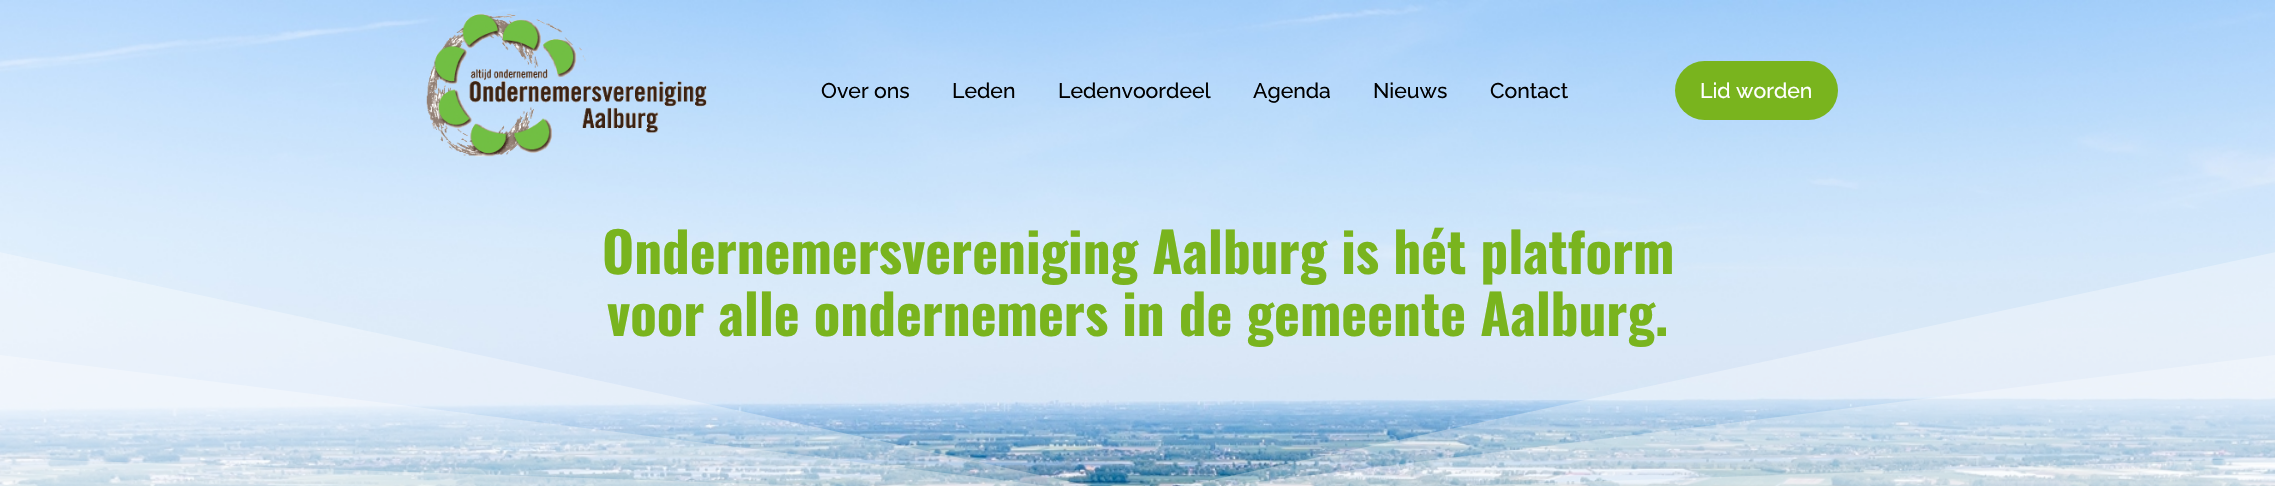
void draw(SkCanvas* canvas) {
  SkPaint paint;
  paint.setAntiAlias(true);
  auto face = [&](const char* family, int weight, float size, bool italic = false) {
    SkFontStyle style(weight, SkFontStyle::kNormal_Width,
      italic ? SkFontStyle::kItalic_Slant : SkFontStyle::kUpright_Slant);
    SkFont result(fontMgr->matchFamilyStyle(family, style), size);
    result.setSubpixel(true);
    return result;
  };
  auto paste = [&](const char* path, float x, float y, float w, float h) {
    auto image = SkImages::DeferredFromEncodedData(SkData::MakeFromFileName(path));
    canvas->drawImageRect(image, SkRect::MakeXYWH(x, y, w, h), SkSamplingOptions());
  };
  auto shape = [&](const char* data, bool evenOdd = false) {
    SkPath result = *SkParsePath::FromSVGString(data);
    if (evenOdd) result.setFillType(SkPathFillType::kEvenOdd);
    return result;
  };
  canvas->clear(0xffffffff);
  paste("img/2.png", 0, 0, 2275, 486);
  paste("img/1.png", 426, 13, 281, 144);
  paint.setColor(0xff79b41e);
  canvas->drawRoundRect(SkRect::MakeXYWH(1675, 61, 163, 59), 29.5f, 29.5f, paint);
  paint.setColor(0x54ffffff);
  canvas->drawPath(shape("M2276 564V252L1137 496L-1 252V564Z"), paint);
  canvas->drawPath(shape("M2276 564V355L1137 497L-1 355V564Z"), paint);
  canvas->drawPath(shape("M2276 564V458L1137 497L-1 458V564Z"), paint);
  auto f0 = face("Raleway", 500, 21.25f);
  paint.setColor(0xff000000);
  {
    const struct { const char* s; float x, y; } items[] = {
      {"Over ons", 821, 98},
      {"Leden", 952, 98},
      {"Ledenvoordeel", 1058, 98},
      {"Agenda", 1253, 98},
      {"Nieuws", 1373, 98},
      {"Contact", 1490, 98},
    };
    for (auto [s, x, y] : items) {
      canvas->drawString(s, x, y, f0, paint);
    }
  }
  paint.setColor(0xffffffff);
  canvas->drawString("Lid worden", 1700, 98, f0, paint);
  auto f1 = face("Oswald", 700, 55);
  paint.setColor(0xff79b41e);
  canvas->drawString("Ondernemersvereniging Aalburg is hét platform", 602, 274, f1, paint);
  canvas->drawString("voor alle ondernemers in de gemeente Aalburg.", 607, 336, f1, paint);
}
